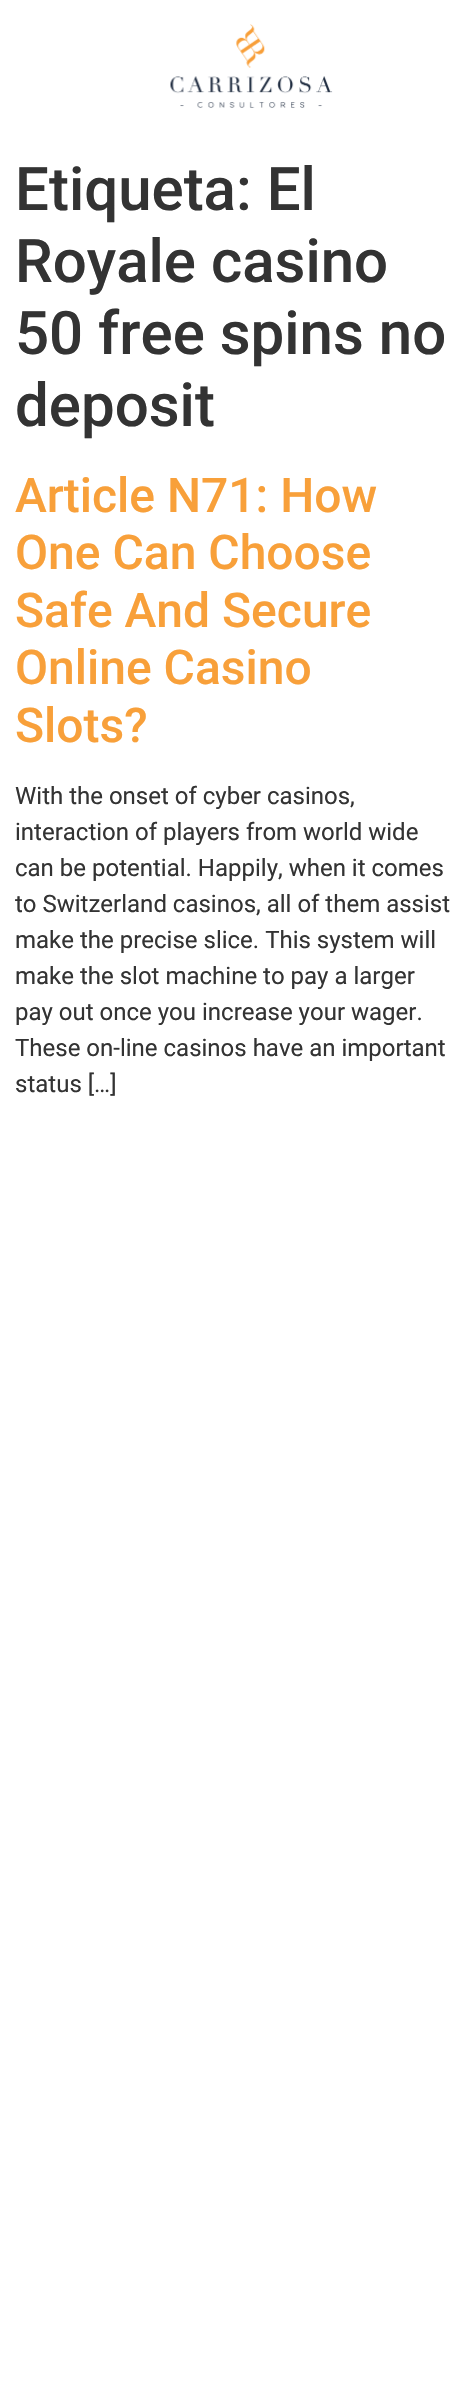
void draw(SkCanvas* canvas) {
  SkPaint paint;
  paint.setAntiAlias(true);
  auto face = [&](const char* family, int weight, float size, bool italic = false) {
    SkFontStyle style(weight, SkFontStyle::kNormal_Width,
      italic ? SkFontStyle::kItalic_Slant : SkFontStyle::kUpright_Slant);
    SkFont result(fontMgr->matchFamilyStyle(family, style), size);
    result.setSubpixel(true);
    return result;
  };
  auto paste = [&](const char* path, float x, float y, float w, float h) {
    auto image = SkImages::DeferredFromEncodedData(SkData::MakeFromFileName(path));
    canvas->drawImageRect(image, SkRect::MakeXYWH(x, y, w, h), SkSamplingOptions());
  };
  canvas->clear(0xffffffff);
  paste("img/1.png", 170, 24, 163, 84);
  auto f0 = face("Roboto", 500, 60);
  paint.setColor(0xff333333);
  {
    const struct { const char* s; float x, y; } items[] = {
      {"Etiqueta: El", 15, 210},
      {"Royale casino", 15, 282},
      {"50 free spins no", 15, 354},
      {"deposit", 15, 426},
    };
    for (auto [s, x, y] : items) {
      canvas->drawString(s, x, y, f0, paint);
    }
  }
  auto f1 = face("Roboto", 500, 48);
  paint.setColor(0xfff8a03a);
  {
    const struct { const char* s; float x, y; } items[] = {
      {"Article N71: How", 15, 512},
      {"One Can Choose", 15, 569},
      {"Safe And Secure", 15, 627},
      {"Online Casino", 15, 684},
      {"Slots?", 15, 742},
    };
    for (auto [s, x, y] : items) {
      canvas->drawString(s, x, y, f1, paint);
    }
  }
  auto f2 = face("Roboto", 400, 24);
  paint.setColor(0xff333333);
  {
    const struct { const char* s; float x, y; } items[] = {
      {"With the onset of cyber casinos,", 15, 804},
      {"interaction of players from world wide", 15, 840},
      {"can be potential. Happily, when it comes", 15, 876},
      {"to Switzerland casinos, all of them assist", 15, 912},
      {"make the precise slice. This system will", 15, 948},
      {"make the slot machine to pay a larger", 15, 984},
      {"pay out once you increase your wager.", 15, 1020},
      {"These on-line casinos have an important", 15, 1056},
      {"status […]", 15, 1092},
    };
    for (auto [s, x, y] : items) {
      canvas->drawString(s, x, y, f2, paint);
    }
  }
}
